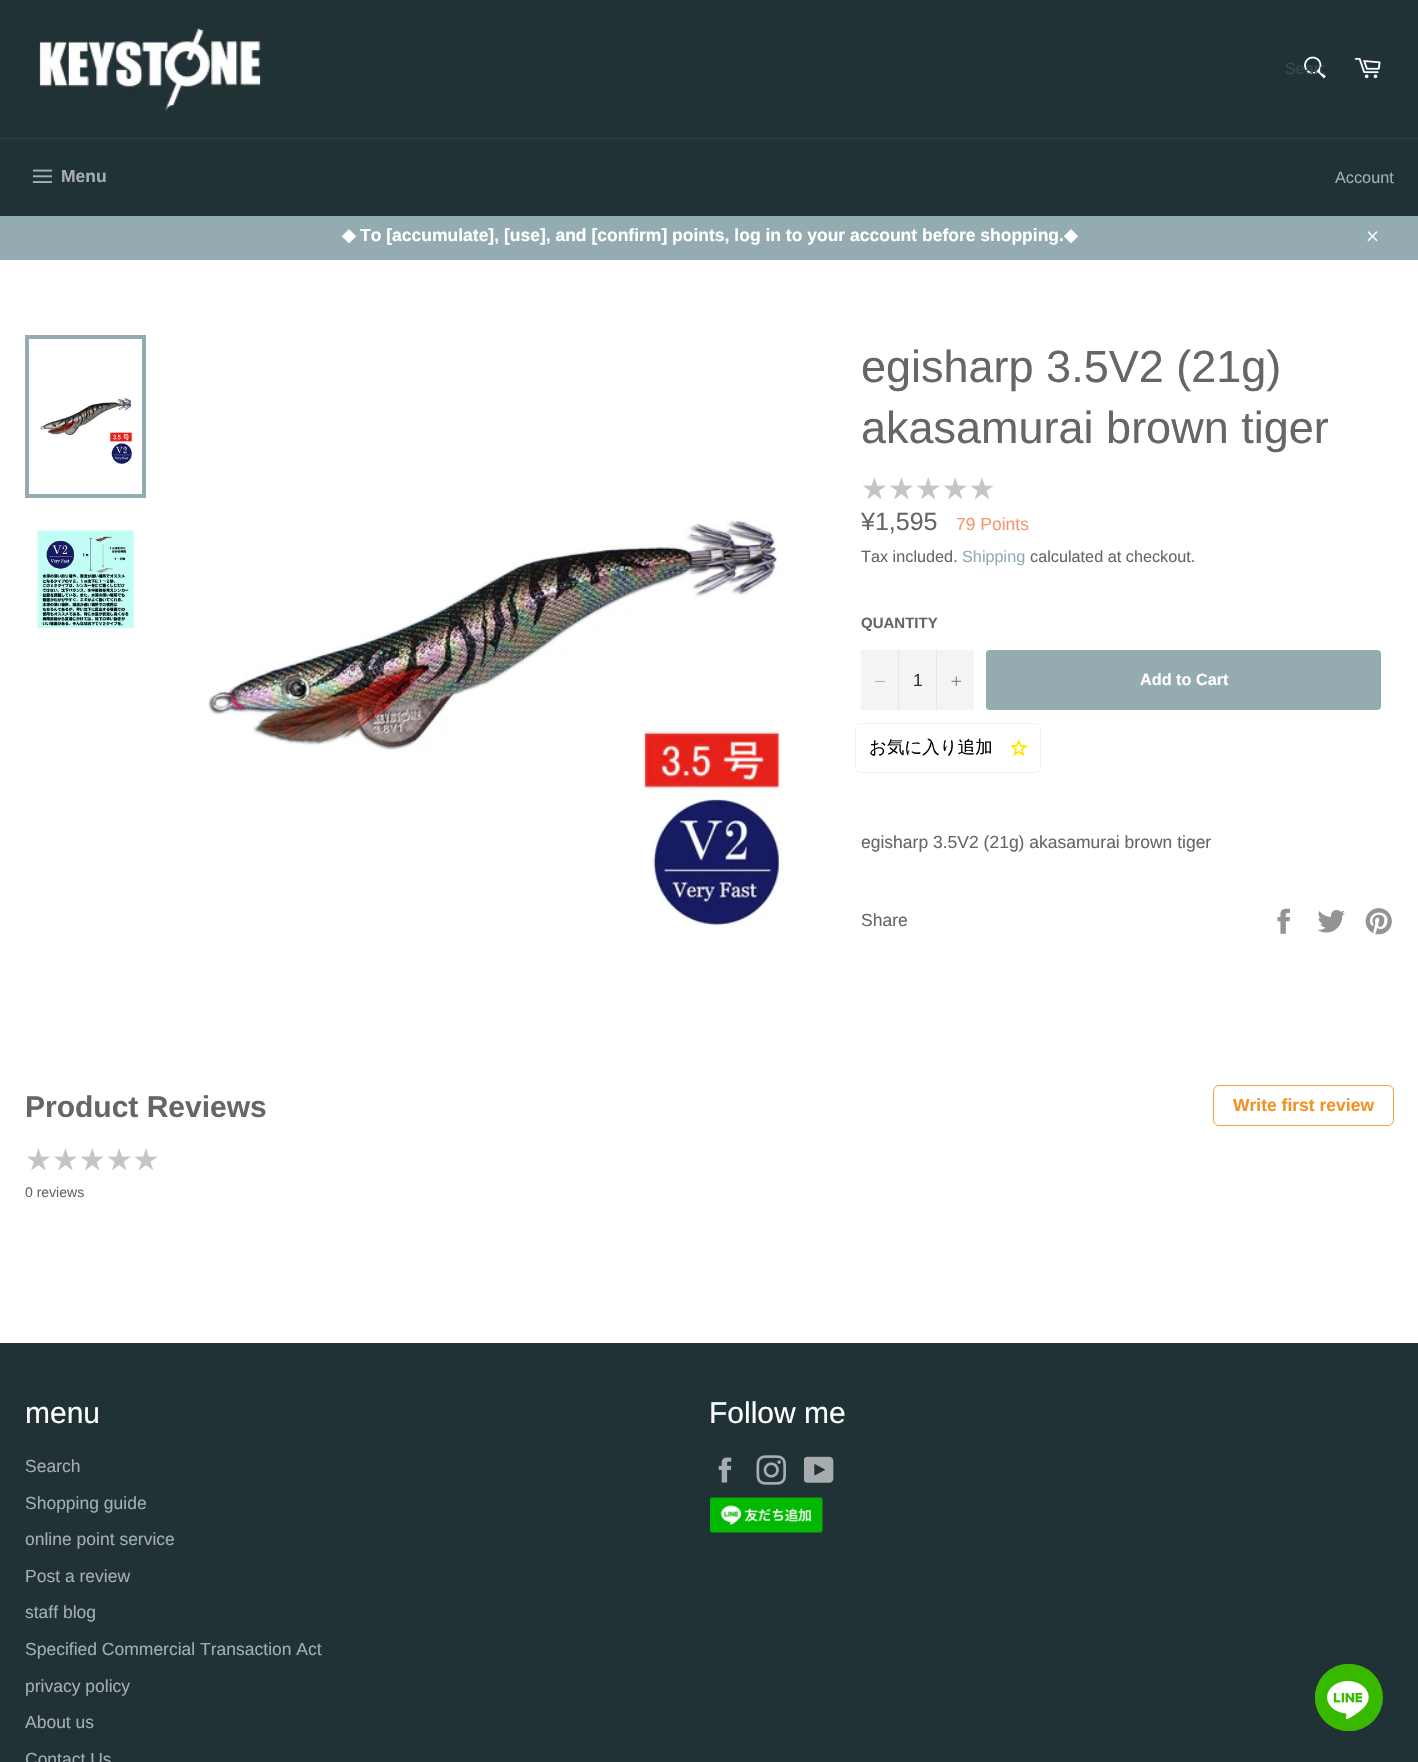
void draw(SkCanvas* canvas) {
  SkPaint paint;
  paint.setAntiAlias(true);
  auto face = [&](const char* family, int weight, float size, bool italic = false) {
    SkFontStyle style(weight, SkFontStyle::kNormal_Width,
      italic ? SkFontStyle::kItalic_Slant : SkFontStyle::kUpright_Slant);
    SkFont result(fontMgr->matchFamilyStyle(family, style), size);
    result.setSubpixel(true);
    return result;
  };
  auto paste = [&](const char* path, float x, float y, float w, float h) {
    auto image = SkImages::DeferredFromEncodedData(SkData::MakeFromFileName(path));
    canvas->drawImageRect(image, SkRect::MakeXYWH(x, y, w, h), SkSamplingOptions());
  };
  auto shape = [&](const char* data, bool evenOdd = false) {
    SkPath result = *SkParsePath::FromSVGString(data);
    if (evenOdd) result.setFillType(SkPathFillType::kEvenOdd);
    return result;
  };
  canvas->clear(0xffffffff);
  paint.setColor(0xff213236);
  canvas->drawRect(SkRect::MakeXYWH(0, 0, 1418, 138), paint);
  paste("img/1.png", 39, 25, 226, 87);
  paste("img/2.png", 1304, 56, 22, 23);
  paste("img/3.png", 1354, 58, 27, 21);
  canvas->drawRect(SkRect::MakeXYWH(0, 139, 1418, 77), paint);
  paint.setColor(0xff2b4146);
  canvas->drawRect(SkRect::MakeXYWH(0, 138, 1418, 1), paint);
  paste("img/4.png", 32, 169, 21, 14);
  paint.setColor(0xff93abb1);
  canvas->drawRect(SkRect::MakeXYWH(0, 216, 1418, 44), paint);
  paste("img/5.png", 1367, 231, 11, 11);
  paste("img/6.png", 40, 397, 94, 68);
  paint.setStroke(true);
  paint.setStrokeWidth(4);
  canvas->drawRect(SkRect::MakeXYWH(27, 337, 117, 159), paint);
  paste("img/7.png", 37, 530, 97, 98);
  paste("img/8.png", 208, 520, 574, 406);
  paint.setStroke(false);
  paint.setColor(0xfff4f4f4);
  canvas->drawRect(SkRect::MakeXYWH(861, 650, 113, 60), paint);
  paint.setColor(0xffe7e7e7);
  canvas->drawRect(SkRect::MakeXYWH(898, 650, 1, 60), paint);
  paint.setColor(0xff666666);
  canvas->drawPath(shape("M885 681V681.5H875V681Z", true), paint);
  paint.setColor(0xffe7e7e7);
  canvas->drawRect(SkRect::MakeXYWH(936, 650, 1, 60), paint);
  paste("img/9.png", 951, 676, 10, 10);
  paint.setColor(0xff93abb1);
  canvas->drawRoundRect(SkRect::MakeXYWH(986, 650, 395, 60), 4, 4, paint);
  paint.setStroke(true);
  paint.setStrokeWidth(1);
  paint.setColor(0xfff1f1f1);
  canvas->drawRoundRect(SkRect::MakeXYWH(855.5f, 723.5f, 185, 49), 4.5f, 4.5f, paint);
  paste("img/10.png", 1010, 739, 18, 17);
  paste("img/11.png", 1277, 908, 13, 26);
  paste("img/12.png", 1317, 910, 28, 23);
  paste("img/13.png", 1365, 908, 27, 27);
  paint.setColor(0xfff7a03e);
  canvas->drawRoundRect(SkRect::MakeXYWH(1213.5f, 1085.5f, 180, 40), 5.5f, 5.5f, paint);
  paint.setStroke(false);
  paint.setColor(0xff213236);
  canvas->drawRect(SkRect::MakeXYWH(0, 1343, 1418, 419), paint);
  paste("img/14.png", 718, 1457, 14, 26);
  paste("img/15.png", 756, 1455, 30, 30);
  paste("img/16.png", 804, 1456, 30, 27);
  paste("img/17.png", 710, 1497, 113, 36);
  paint.setColor(0xff38b900);
  canvas->drawRoundRect(SkRect::MakeXYWH(1315, 1664, 68, 67), 33.5f, 33.5f, paint);
  paste("img/18.png", 1315, 1664, 54, 67);
  canvas->save();
  canvas->clipRect(SkRect::MakeXYWH(1285, 60, 40, 19));
  auto f0 = face("Arimo", 400, 16.25f);
  paint.setColor(0xff3b4a4d);
  canvas->drawString("Searc", 1285, 74, f0, paint);
  canvas->restore();
  auto f1 = face("Arimo", 700, 17.5f);
  paint.setColor(0xffa6adaf);
  canvas->drawString("Menu", 61, 182, f1, paint);
  canvas->drawString("Account", 1335, 183, f0, paint);
  auto f2 = face("DejaVu Sans", 700, 17.5f);
  paint.setColor(0xffffffff);
  canvas->drawString("◆", 342, 241, f2, paint);
  canvas->drawString("To [accumulate], [use], and [confirm] points, log in to your account before shopping.", 360, 241, f1, paint);
  canvas->drawString("◆", 1064, 241, f2, paint);
  auto f3 = face("Arimo", 400, 45);
  paint.setColor(0xff666666);
  canvas->drawString("egisharp 3.5V2 (21g)", 861, 382, f3, paint);
  canvas->drawString("akasamurai brown tiger", 861, 443, f3, paint);
  auto f4 = face("DejaVu Sans", 400, 30);
  paint.setColor(0xffc5c5c5);
  canvas->drawString("★★★★★", 861, 499, f4, paint);
  auto f5 = face("Arimo", 400, 25);
  paint.setColor(0xff666666);
  canvas->drawString("¥1,595", 861, 530, f5, paint);
  auto f6 = face("Arimo", 400, 17.5f);
  paint.setColor(0xfff7976e);
  canvas->drawString("79 Points", 956, 530, f6, paint);
  paint.setColor(0xff666666);
  canvas->drawString("Tax included.", 861, 562, f0, paint);
  paint.setColor(0xff93abb1);
  canvas->drawString("Shipping", 962, 562, f0, paint);
  paint.setColor(0xff666666);
  canvas->drawString("calculated at checkout.", 1030, 562, f0, paint);
  auto f7 = face("Arimo", 700, 15);
  canvas->drawString("QUANTITY", 861, 628, f7, paint);
  paint.setColor(0xff333333);
  canvas->drawString("1", 913, 686, f6, paint);
  auto f8 = face("Arimo", 700, 16.25f);
  paint.setColor(0xffffffff);
  canvas->drawString("Add to Cart", 1140, 685, f8, paint);
  auto f9 = face("WenQuanYi Zen Hei", 500, 17.5f);
  paint.setColor(0xff000000);
  canvas->drawString("お気に入り追加", 869, 753, f9, paint);
  paint.setColor(0xff666666);
  canvas->drawString("egisharp 3.5V2 (21g) akasamurai brown tiger", 861, 848, f6, paint);
  canvas->drawString("Share", 861, 926, f6, paint);
  auto f10 = face("Arimo", 700, 30);
  canvas->drawString("Product Reviews", 25, 1117, f10, paint);
  paint.setColor(0xfff19225);
  canvas->drawString("Write first review", 1233, 1111, f1, paint);
  paint.setColor(0xffc5c5c5);
  canvas->drawString("★★★★★", 25, 1170, f4, paint);
  auto f11 = face("Arimo", 400, 14);
  paint.setColor(0xff666666);
  canvas->drawString("0 reviews", 25, 1197, f11, paint);
  auto f12 = face("Arimo", 400, 30);
  paint.setColor(0xffffffff);
  canvas->drawString("menu", 25, 1423, f12, paint);
  paint.setColor(0xffa6adaf);
  {
    const struct { const char* s; float x, y; } items[] = {
      {"Search", 25, 1472},
      {"Shopping guide", 25, 1509},
      {"online point service", 25, 1545},
      {"Post a review", 25, 1582},
      {"staff blog", 25, 1618},
      {"Specified Commercial Transaction Act", 25, 1655},
      {"privacy policy", 25, 1692},
      {"About us", 25, 1728},
      {"Contact Us", 25, 1765},
    };
    for (auto [s, x, y] : items) {
      canvas->drawString(s, x, y, f6, paint);
    }
  }
  paint.setColor(0xffffffff);
  canvas->drawString("Follow me", 709, 1423, f12, paint);
}
